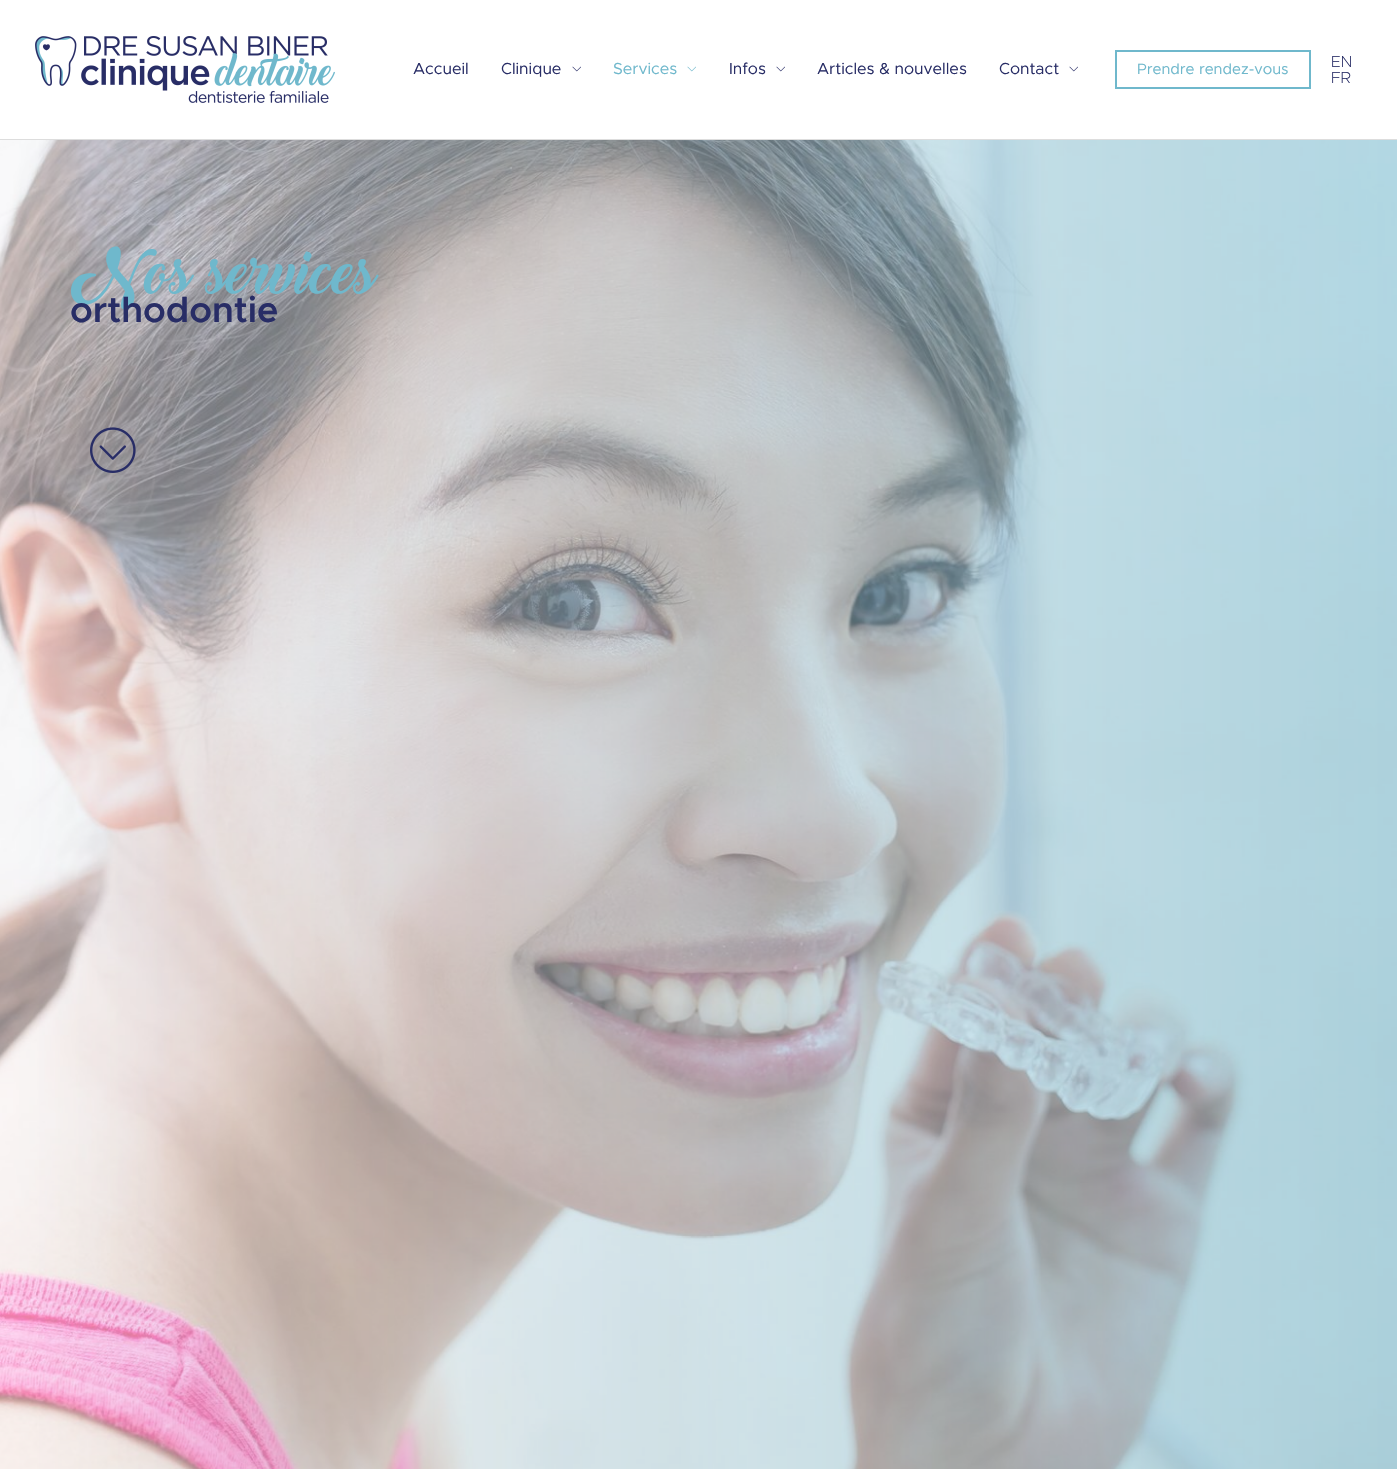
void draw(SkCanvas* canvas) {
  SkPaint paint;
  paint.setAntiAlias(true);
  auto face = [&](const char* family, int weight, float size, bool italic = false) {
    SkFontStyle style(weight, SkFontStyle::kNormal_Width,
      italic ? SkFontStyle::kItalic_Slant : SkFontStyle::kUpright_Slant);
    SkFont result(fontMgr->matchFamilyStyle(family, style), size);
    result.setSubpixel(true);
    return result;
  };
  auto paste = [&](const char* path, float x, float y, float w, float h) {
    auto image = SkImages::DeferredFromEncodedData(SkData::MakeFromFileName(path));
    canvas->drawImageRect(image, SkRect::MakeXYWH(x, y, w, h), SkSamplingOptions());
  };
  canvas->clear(0xffffffff);
  paint.setColor(0xffdddddd);
  canvas->drawRect(SkRect::MakeXYWH(0, 139, 1397, 1), paint);
  paste("img/1.png", 35, 36, 300, 67);
  paste("img/2.png", 572, 66, 9, 6);
  paste("img/3.png", 687, 66, 9, 6);
  paste("img/2.png", 776, 66, 9, 6);
  paste("img/2.png", 1069, 66, 9, 6);
  paint.setStroke(true);
  paint.setStrokeWidth(2);
  paint.setColor(0xff6fb8cc);
  canvas->drawRect(SkRect::MakeXYWH(1116, 51, 194, 37), paint);
  paste("img/4.png", 0, 140, 1397, 1329);
  paste("img/5.png", 90, 427, 46, 46);
  auto f0 = face("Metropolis", 400, 16);
  paint.setStroke(false);
  paint.setColor(0xff282d66);
  canvas->drawString("Accueil", 413, 74, f0, paint);
  canvas->drawString("Clinique", 501, 74, f0, paint);
  paint.setColor(0xff6fb8cc);
  canvas->drawString("Services", 613, 74, f0, paint);
  paint.setColor(0xff282d66);
  {
    const struct { const char* s; float x, y; } items[] = {
      {"Infos", 729, 74},
      {"Articles & nouvelles", 817, 74},
      {"Contact", 999, 74},
    };
    for (auto [s, x, y] : items) {
      canvas->drawString(s, x, y, f0, paint);
    }
  }
  auto f1 = face("Metropolis", 400, 15);
  paint.setColor(0xff6fb8cc);
  canvas->drawString("Prendre rendez-vous", 1137, 74, f1, paint);
  auto f2 = face("Metropolis", 200, 16);
  paint.setColor(0xff282d66);
  canvas->drawString("EN", 1331, 67, f2, paint);
  canvas->drawString("FR", 1331, 83, f2, paint);
  auto f3 = face("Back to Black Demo", 900, 60);
  paint.setColor(0xff6fb8cc);
  canvas->drawString("Nos services", 70, 294, f3, paint);
  auto f4 = face("Metropolis", 600, 36);
  paint.setColor(0xff282d66);
  canvas->drawString("orthodontie", 70, 322, f4, paint);
}
